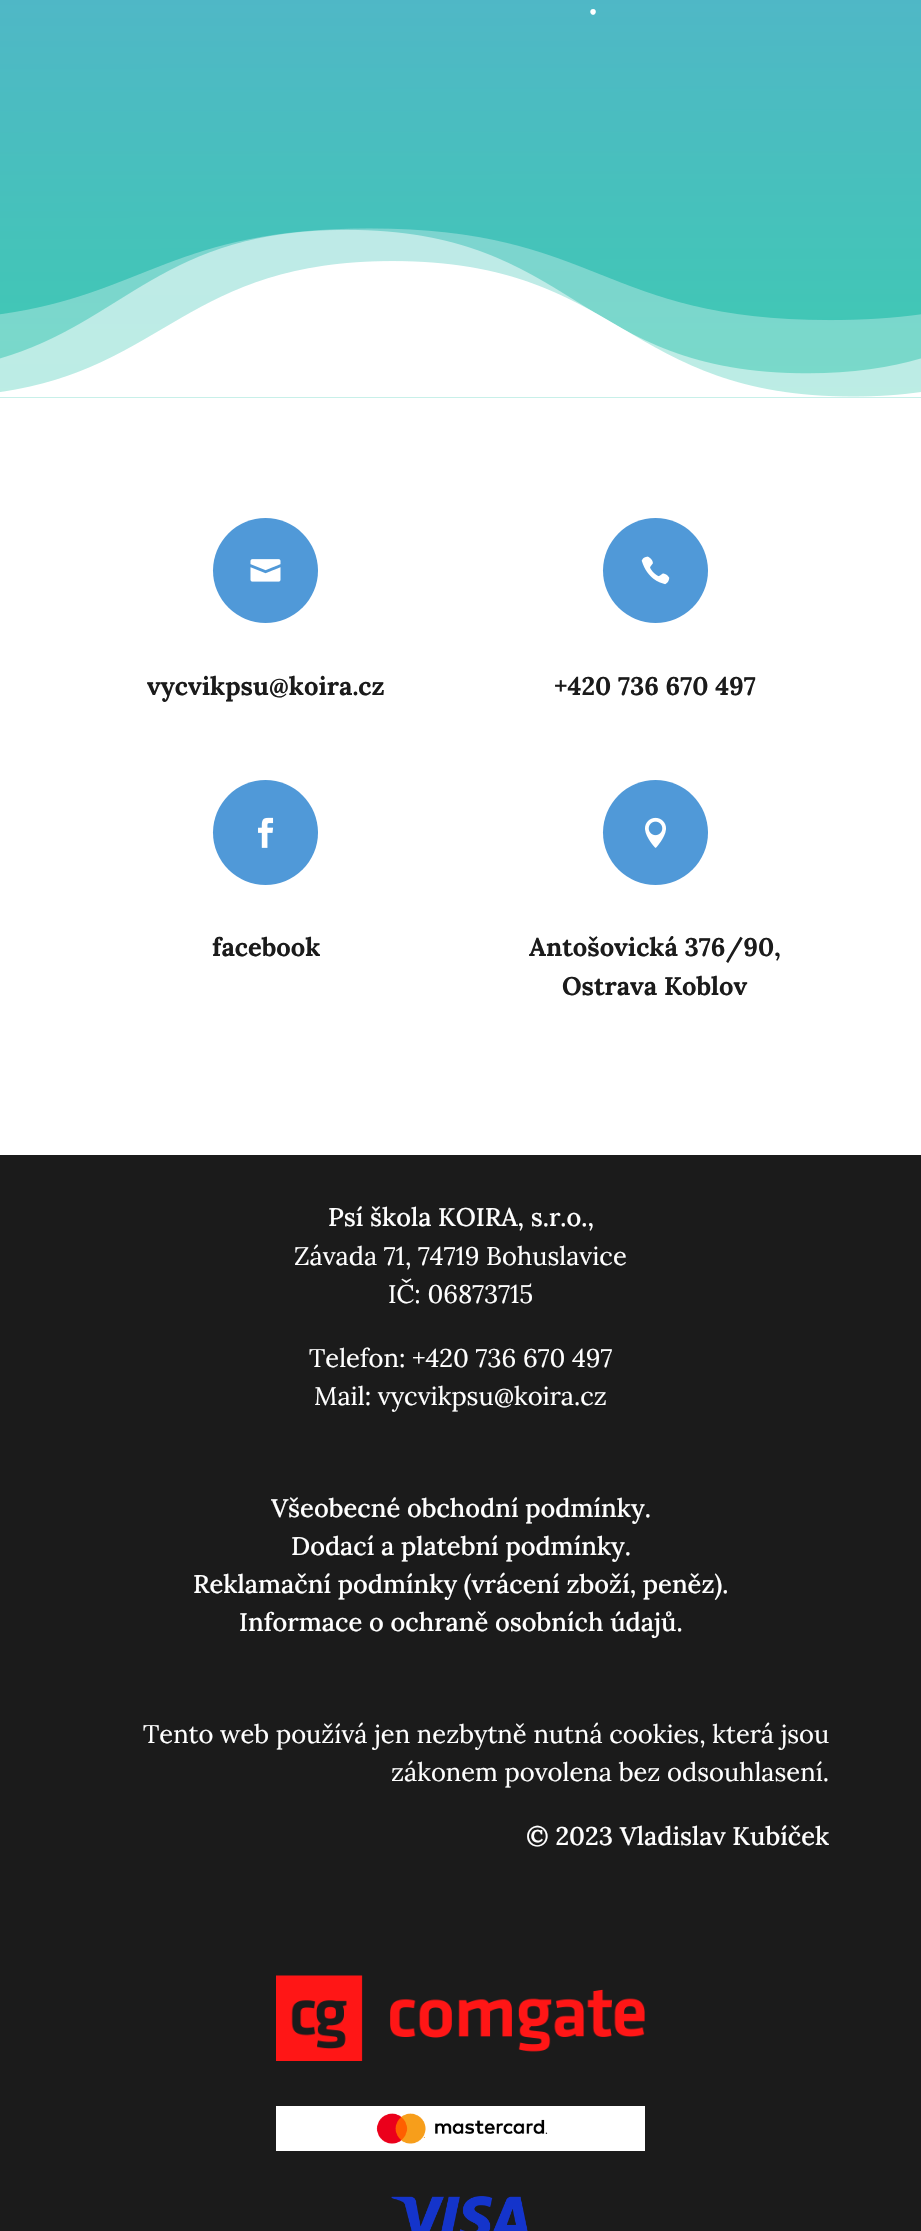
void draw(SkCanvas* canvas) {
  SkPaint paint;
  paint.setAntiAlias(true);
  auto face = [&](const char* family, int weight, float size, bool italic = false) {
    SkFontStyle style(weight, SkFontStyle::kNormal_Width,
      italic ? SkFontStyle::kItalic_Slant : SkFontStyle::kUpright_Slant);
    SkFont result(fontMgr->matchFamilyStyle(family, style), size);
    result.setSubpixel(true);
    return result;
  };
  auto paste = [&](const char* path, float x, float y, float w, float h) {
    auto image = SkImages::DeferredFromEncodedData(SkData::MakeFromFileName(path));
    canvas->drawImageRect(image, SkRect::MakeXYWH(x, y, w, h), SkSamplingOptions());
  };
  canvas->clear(0xffffffff);
  {
    const SkColor colors[] = {0xff62a3dc, 0xff3ecab2};
    const float stops[] = {0, 1};
    const SkPoint ends[] = {{460, -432}, {461, 398}};
    paint.setShader(SkGradientShader::MakeLinear(ends, colors, stops, 2, SkTileMode::kClamp));
    paint.setAlpha(255);
  }
  canvas->drawRect(SkRect::MakeXYWH(0, 0, 921, 398), paint);
  paste("img/1.png", 0, 228, 921, 170);
  paint.setShader(nullptr);
  paint.setColor(0xff5099d8);
  canvas->drawCircle(265.5f, 570.5f, 52.5f, paint);
  paste("img/2.png", 250, 559, 31, 23);
  canvas->drawCircle(655.5f, 570.5f, 52.5f, paint);
  paste("img/3.png", 641, 556, 29, 29);
  canvas->drawCircle(265.5f, 832.5f, 52.5f, paint);
  paste("img/4.png", 258, 817, 16, 31);
  canvas->drawCircle(655.5f, 832.5f, 52.5f, paint);
  paste("img/5.png", 645, 817, 21, 31);
  paint.setColor(0xff1b1b1b);
  canvas->drawRect(SkRect::MakeXYWH(0, 1155, 921, 1076), paint);
  paste("img/6.png", 276, 1975, 369, 86);
  paint.setColor(0xffffffff);
  canvas->drawRect(SkRect::MakeXYWH(276, 2106, 369, 45), paint);
  paste("img/7.png", 376, 2113, 172, 31);
  paste("img/8.png", 391, 2196, 137, 35);
  auto f0 = face("Lora", 500, 42);
  canvas->drawString(".", 588, 14, f0, paint);
  auto f1 = face("Lora", 700, 25.5f);
  paint.setColor(0xff1b1b1b);
  {
    const struct { const char* s; float x, y; } items[] = {
      {"vycvikpsu@koira.cz", 147, 695},
      {"+420 736 670 497", 554, 695},
      {"facebook", 212, 956},
      {"Antošovická 376/90,", 529, 956},
      {"Ostrava Koblov", 562, 995},
    };
    for (auto [s, x, y] : items) {
      canvas->drawString(s, x, y, f1, paint);
    }
  }
  auto f2 = face("Lora", 500, 25.5f);
  paint.setColor(0xffffffff);
  canvas->drawString("Psí škola KOIRA, s.r.o.,", 328, 1226, f2, paint);
  auto f3 = face("Lora", 400, 25.5f);
  {
    const struct { const char* s; float x, y; } items[] = {
      {"Závada 71, 74719 Bohuslavice", 294, 1265},
      {"IČ: 06873715", 388, 1303},
      {"Telefon: +420 736 670 497", 309, 1367},
      {"Mail: vycvikpsu@koira.cz", 314, 1405},
    };
    for (auto [s, x, y] : items) {
      canvas->drawString(s, x, y, f3, paint);
    }
  }
  {
    const struct { const char* s; float x, y; } items[] = {
      {"Všeobecné obchodní podmínky.", 271, 1517},
      {"Dodací a platební podmínky.", 291, 1555},
      {"Reklamační podmínky (vrácení zboží, peněz).", 193, 1593},
      {"Informace o ochraně osobních údajů.", 239, 1631},
    };
    for (auto [s, x, y] : items) {
      canvas->drawString(s, x, y, f2, paint);
    }
  }
  canvas->drawString("Tento web používá jen nezbytně nutná cookies, která jsou", 143, 1743, f3, paint);
  canvas->drawString("zákonem povolena bez odsouhlasení.", 391, 1781, f3, paint);
  canvas->drawString("© 2023 Vladislav Kubíček", 526, 1845, f2, paint);
}
